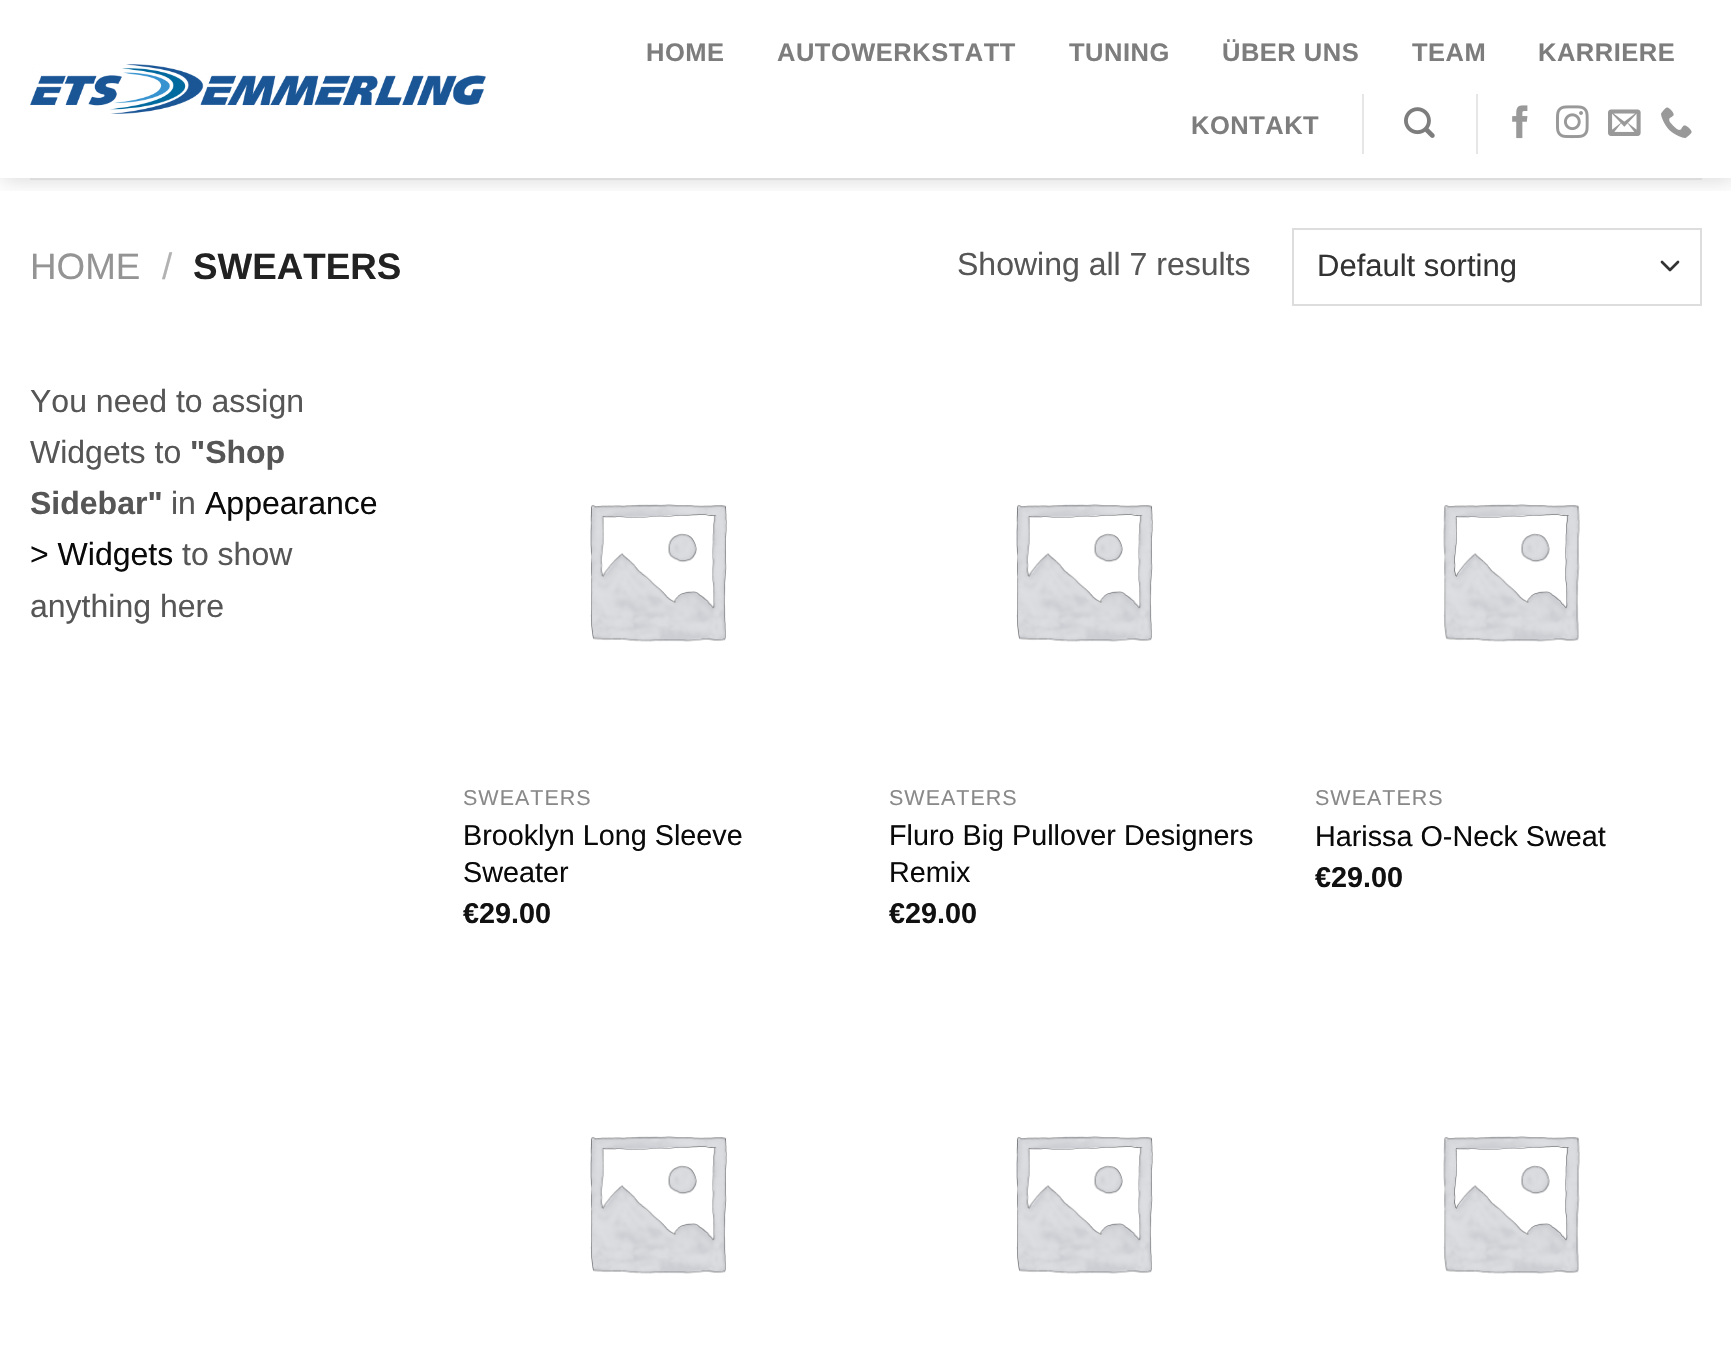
void draw(SkCanvas* canvas) {
  SkPaint paint;
  paint.setAntiAlias(true);
  auto face = [&](const char* family, int weight, float size, bool italic = false) {
    SkFontStyle style(weight, SkFontStyle::kNormal_Width,
      italic ? SkFontStyle::kItalic_Slant : SkFontStyle::kUpright_Slant);
    SkFont result(fontMgr->matchFamilyStyle(family, style), size);
    result.setSubpixel(true);
    return result;
  };
  auto writeSpaced = [&](const char* s, float x, float y, const SkFont& font, const SkPaint& ink, float letter, float word) {
    std::vector<SkGlyphID> glyphs(font.countText(s, strlen(s), SkTextEncoding::kUTF8));
    std::vector<float> xs(glyphs.size());
    font.textToGlyphs(s, strlen(s), SkTextEncoding::kUTF8, glyphs);
    font.getXPos(glyphs, xs, x);
    float extra = 0;
    for (size_t i = 0; i < glyphs.size(); i++) {
      xs[i] += extra;
      extra += letter + word * (glyphs[i] == font.unicharToGlyph(' '));
    }
    canvas->drawTextBlob(SkTextBlob::MakeFromPosHGlyphs(glyphs, xs, y, font), 0, 0, ink);
  };
  auto paste = [&](const char* path, float x, float y, float w, float h) {
    auto image = SkImages::DeferredFromEncodedData(SkData::MakeFromFileName(path));
    canvas->drawImageRect(image, SkRect::MakeXYWH(x, y, w, h), SkSamplingOptions());
  };
  auto shape = [&](const char* data, bool evenOdd = false) {
    SkPath result = *SkParsePath::FromSVGString(data);
    if (evenOdd) result.setFillType(SkPathFillType::kEvenOdd);
    return result;
  };
  canvas->clear(0xffffffff);
  canvas->save();
  canvas->clipRect(SkRect::MakeXYWH(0, 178, 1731, 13));
  paint.setColor(0x26000000);
  paint.setMaskFilter(SkMaskFilter::MakeBlur(kNormal_SkBlurStyle, 10));
  canvas->drawRect(SkRect::MakeXYWH(2, 2, 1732, 178), paint);
  paint.setMaskFilter(nullptr);
  canvas->restore();
  paste("img/1.png", 30, 64, 456, 50);
  paint.setColor(0xffe6e6e6);
  canvas->drawRect(SkRect::MakeXYWH(1362, 94, 2, 60), paint);
  paste("img/2.png", 1404, 107, 31, 31);
  canvas->drawRect(SkRect::MakeXYWH(1476, 94, 2, 60), paint);
  paste("img/3.png", 1512, 105, 16, 34);
  paste("img/4.png", 1556, 105, 33, 34);
  paste("img/5.png", 1608, 109, 33, 27);
  paste("img/6.png", 1661, 107, 31, 31);
  paint.setColor(0xffdcdcdc);
  canvas->drawRect(SkRect::MakeXYWH(30, 178, 1672, 2), paint);
  paint.setStroke(true);
  paint.setStrokeWidth(2.7f);
  paint.setStrokeCap(SkPaint::kRound_Cap);
  paint.setStrokeJoin(SkPaint::kRound_Join);
  paint.setColor(0xff333333);
  canvas->drawPath(shape("M1662 262L1670 270L1678 262"), paint);
  paint.setStrokeWidth(2);
  paint.setStrokeCap(SkPaint::kButt_Cap);
  paint.setStrokeJoin(SkPaint::kMiter_Join);
  paint.setColor(0xffdddddd);
  canvas->drawRect(SkRect::MakeXYWH(1293, 229, 408, 76), paint);
  paste("img/7.png", 590, 504, 137, 138);
  paste("img/7.png", 1016, 504, 137, 138);
  paste("img/8.png", 1443, 504, 137, 138);
  paste("img/7.png", 590, 1136, 137, 138);
  paste("img/7.png", 1016, 1136, 137, 138);
  paste("img/8.png", 1443, 1136, 137, 138);
  auto f0 = face("Liberation Sans", 700, 25.5f);
  paint.setStroke(false);
  paint.setColor(0xff7d7d7d);
  {
    const struct { const char* s; float x, y; } items[] = {
      {"HOME", 646, 61},
      {"AUTOWERKSTATT", 777, 61},
      {"TUNING", 1069, 61},
      {"ÜBER UNS", 1222, 61},
      {"TEAM", 1412, 61},
      {"KARRIERE", 1538, 61},
      {"KONTAKT", 1191, 134},
    };
    for (auto [s, x, y] : items) {
      writeSpaced(s, x, y, f0, paint, 0.5f, 0);
    }
  }
  auto f1 = face("Liberation Sans", 400, 36.75f);
  paint.setColor(0xff949494);
  canvas->drawString("HOME", 30, 279, f1, paint);
  paint.setColor(0xffb2b2b2);
  canvas->drawString("/", 162, 279, f1, paint);
  auto f2 = face("Liberation Sans", 700, 36.75f);
  paint.setColor(0xff222222);
  canvas->drawString("SWEATERS", 193, 279, f2, paint);
  auto f3 = face("Liberation Sans", 400, 32);
  paint.setColor(0xff565656);
  canvas->drawString("Showing all 7 results", 957, 275, f3, paint);
  auto f4 = face("Liberation Sans", 400, 31);
  paint.setColor(0xff333333);
  canvas->drawString("Default sorting", 1317, 276, f4, paint);
  paint.setColor(0xff565656);
  canvas->drawString("You need to assign", 30, 412, f3, paint);
  canvas->drawString("Widgets to", 30, 463, f3, paint);
  auto f5 = face("Liberation Sans", 700, 32);
  canvas->drawString("\"Shop", 190, 463, f5, paint);
  canvas->drawString("Sidebar\"", 30, 514, f5, paint);
  canvas->drawString("in", 171, 514, f3, paint);
  paint.setColor(0xff0a0a0a);
  canvas->drawString("Appearance", 205, 514, f3, paint);
  canvas->drawString("> Widgets", 30, 565, f3, paint);
  paint.setColor(0xff565656);
  canvas->drawString("to show", 182, 565, f3, paint);
  canvas->drawString("anything here", 30, 617, f3, paint);
  auto f6 = face("Liberation Sans", 400, 21.5f);
  paint.setColor(0xff898989);
  writeSpaced("SWEATERS", 463, 805, f6, paint, 1, 0);
  auto f7 = face("Liberation Sans", 400, 28.75f);
  paint.setColor(0xff0a0a0a);
  canvas->drawString("Brooklyn Long Sleeve", 463, 845, f7, paint);
  canvas->drawString("Sweater", 463, 882, f7, paint);
  auto f8 = face("Liberation Sans", 700, 28.75f);
  paint.setColor(0xff111111);
  canvas->drawString("€29.00", 463, 923, f8, paint);
  paint.setColor(0xff898989);
  writeSpaced("SWEATERS", 889, 805, f6, paint, 1, 0);
  paint.setColor(0xff0a0a0a);
  canvas->drawString("Fluro Big Pullover Designers", 889, 845, f7, paint);
  canvas->drawString("Remix", 889, 882, f7, paint);
  paint.setColor(0xff111111);
  canvas->drawString("€29.00", 889, 923, f8, paint);
  paint.setColor(0xff898989);
  writeSpaced("SWEATERS", 1315, 805, f6, paint, 1, 0);
  paint.setColor(0xff0a0a0a);
  canvas->drawString("Harissa O-Neck Sweat", 1315, 846, f7, paint);
  paint.setColor(0xff111111);
  canvas->drawString("€29.00", 1315, 887, f8, paint);
}
